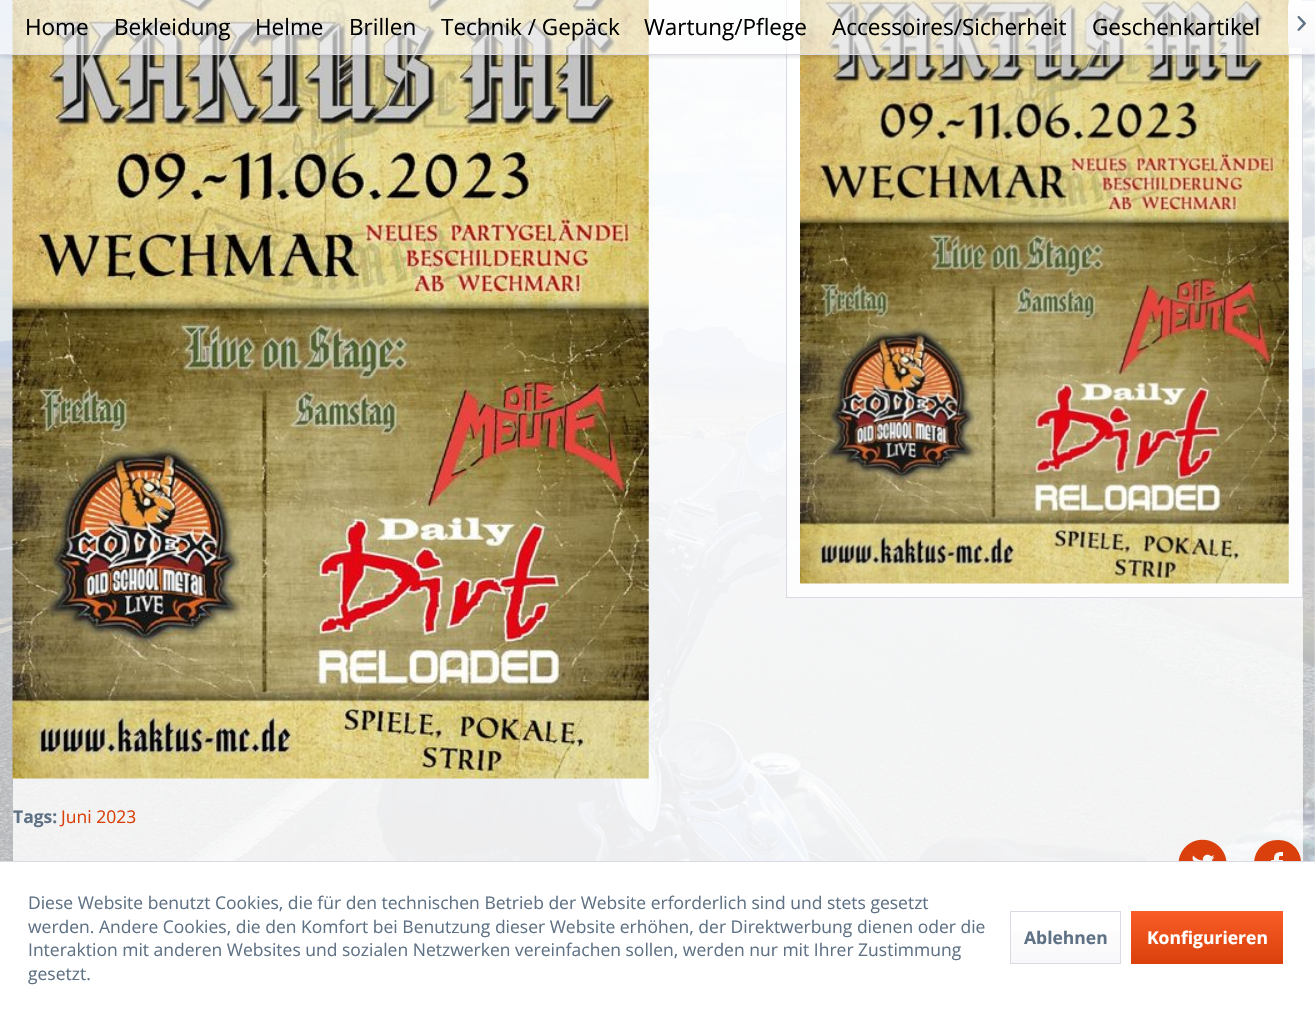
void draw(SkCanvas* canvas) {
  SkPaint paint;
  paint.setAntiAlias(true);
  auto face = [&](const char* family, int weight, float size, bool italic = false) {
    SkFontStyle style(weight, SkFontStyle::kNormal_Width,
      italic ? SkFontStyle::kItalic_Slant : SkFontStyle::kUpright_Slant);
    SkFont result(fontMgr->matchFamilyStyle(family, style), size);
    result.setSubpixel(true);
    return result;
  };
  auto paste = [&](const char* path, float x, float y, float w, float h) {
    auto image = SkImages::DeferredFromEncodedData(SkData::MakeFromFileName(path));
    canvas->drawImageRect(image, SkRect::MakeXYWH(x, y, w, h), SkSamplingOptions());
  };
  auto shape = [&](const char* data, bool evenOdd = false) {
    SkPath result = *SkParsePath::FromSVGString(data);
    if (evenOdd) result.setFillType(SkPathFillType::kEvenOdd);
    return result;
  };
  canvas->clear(0xffffffff);
  paste("img/1.png", 0, 0, 1315, 861);
  paste("img/3.png", 12, 0, 637, 779);
  paint.setColor(0xccffffff);
  canvas->drawRect(SkRect::MakeXYWH(786.5f, -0.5f, 516, 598), paint);
  paint.setStroke(true);
  paint.setStrokeWidth(1);
  paint.setColor(0xffdadae5);
  canvas->drawRect(SkRect::MakeXYWH(786.5f, -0.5f, 516, 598), paint);
  paste("img/4.png", 800, 0, 489, 584);
  canvas->save();
  canvas->clipRect(SkRect::MakeXYWH(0, 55, 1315, 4));
  paint.setStroke(false);
  paint.setColor(0x26000000);
  paint.setMaskFilter(SkMaskFilter::MakeBlur(kNormal_SkBlurStyle, 2.5f));
  canvas->drawRect(SkRect::MakeXYWH(0, 1, 1315, 55), paint);
  paint.setMaskFilter(nullptr);
  canvas->restore();
  paint.setColor(0xa1ffffff);
  canvas->drawRect(SkRect::MakeXYWH(0, 0, 1315, 54), paint);
  paint.setColor(0xffdadae5);
  canvas->drawRect(SkRect::MakeXYWH(0, 54, 1315, 1), paint);
  {
    const SkColor colors[] = {0xffffffff, 0xfff8f8fa};
    const float stops[] = {0, 1};
    const SkPoint ends[] = {{1301, 1.2f}, {1301, 48}};
    paint.setShader(SkGradientShader::MakeLinear(ends, colors, stops, 2, SkTileMode::kClamp));
    paint.setAlpha(255);
  }
  canvas->drawPath(shape("M1292 1H1315V48H1292C1290 48 1288 46 1288 44V5C1288 3 1290 1 1292 1Z"), paint);
  paste("img/2.png", 1297, 16, 9, 15);
  paste("img/5.png", 1178, 839, 49, 22);
  paint.setShader(nullptr);
  paint.setColor(0xffd9400b);
  canvas->drawPath(shape("M1278 840C1246 840 1246 888 1278 888C1309 888 1309 840 1278 840ZM1283 856C1278 856 1279 856 1279 860H1283V864H1279V875H1274V864H1271V860H1274C1274 853 1276 852 1283 852Z"), paint);
  paint.setColor(0xffffffff);
  canvas->drawRect(SkRect::MakeXYWH(1254, 862, 48, 26), paint);
  paint.setColor(0xffdadae5);
  canvas->drawRect(SkRect::MakeXYWH(0, 861, 1315, 1), paint);
  {
    const SkColor colors[] = {0xffffffff, 0xfff8f8fa};
    const float stops[] = {0, 1};
    const SkPoint ends[] = {{1066, 913}, {1066, 963}};
    paint.setShader(SkGradientShader::MakeLinear(ends, colors, stops, 2, SkTileMode::kClamp));
    paint.setAlpha(255);
  }
  canvas->drawRect(SkRect::MakeXYWH(1011, 931, 109, 32), paint);
  paint.setStroke(true);
  paint.setShader(nullptr);
  paint.setColor(0xffdadae5);
  canvas->drawRect(SkRect::MakeXYWH(1010.5f, 911.5f, 110, 52), paint);
  paint.setStroke(false);
  {
    const SkColor colors[] = {0xfffa5d27, 0xffd9400b};
    const float stops[] = {0, 1};
    const SkPoint ends[] = {{1207, 911}, {1207, 964}};
    paint.setShader(SkGradientShader::MakeLinear(ends, colors, stops, 2, SkTileMode::kClamp));
    paint.setAlpha(255);
  }
  canvas->drawRect(SkRect::MakeXYWH(1131, 911, 152, 53), paint);
  auto f0 = face("Open Sans", 400, 22.5f);
  paint.setShader(nullptr);
  paint.setColor(0xff000000);
  {
    const struct { const char* s; float x, y; } items[] = {
      {"Home", 25, 35},
      {"Bekleidung", 114, 35},
      {"Helme", 255, 35},
      {"Brillen", 349, 35},
      {"Technik / Gepäck", 441, 35},
      {"Wartung/Pflege", 644, 35},
      {"Accessoires/Sicherheit", 832, 35},
      {"Geschenkartikel", 1092, 35},
    };
    for (auto [s, x, y] : items) {
      canvas->drawString(s, x, y, f0, paint);
    }
  }
  auto f1 = face("Open Sans", 700, 17.5f);
  paint.setColor(0xff5f7285);
  canvas->drawString("Tags:", 13, 823, f1, paint);
  auto f2 = face("Open Sans", 400, 17.5f);
  paint.setColor(0xffd9400b);
  canvas->drawString("Juni 2023", 61, 823, f2, paint);
  paint.setColor(0xff5f7285);
  {
    const struct { const char* s; float x, y; } items[] = {
      {"Diese Website benutzt Cookies, die für den technischen Betrieb der Website erforderlich sind und stets gesetzt", 28, 909},
      {"werden. Andere Cookies, die den Komfort bei Benutzung dieser Website erhöhen, der Direktwerbung dienen oder die", 28, 933},
      {"Interaktion mit anderen Websites und sozialen Netzwerken vereinfachen sollen, werden nur mit Ihrer Zustimmung", 28, 956},
      {"gesetzt.", 28, 980},
    };
    for (auto [s, x, y] : items) {
      canvas->drawString(s, x, y, f2, paint);
    }
  }
  canvas->drawString("Ablehnen", 1024, 944, f1, paint);
  paint.setColor(0xffffffff);
  canvas->drawString("Konfigurieren", 1147, 944, f1, paint);
}
